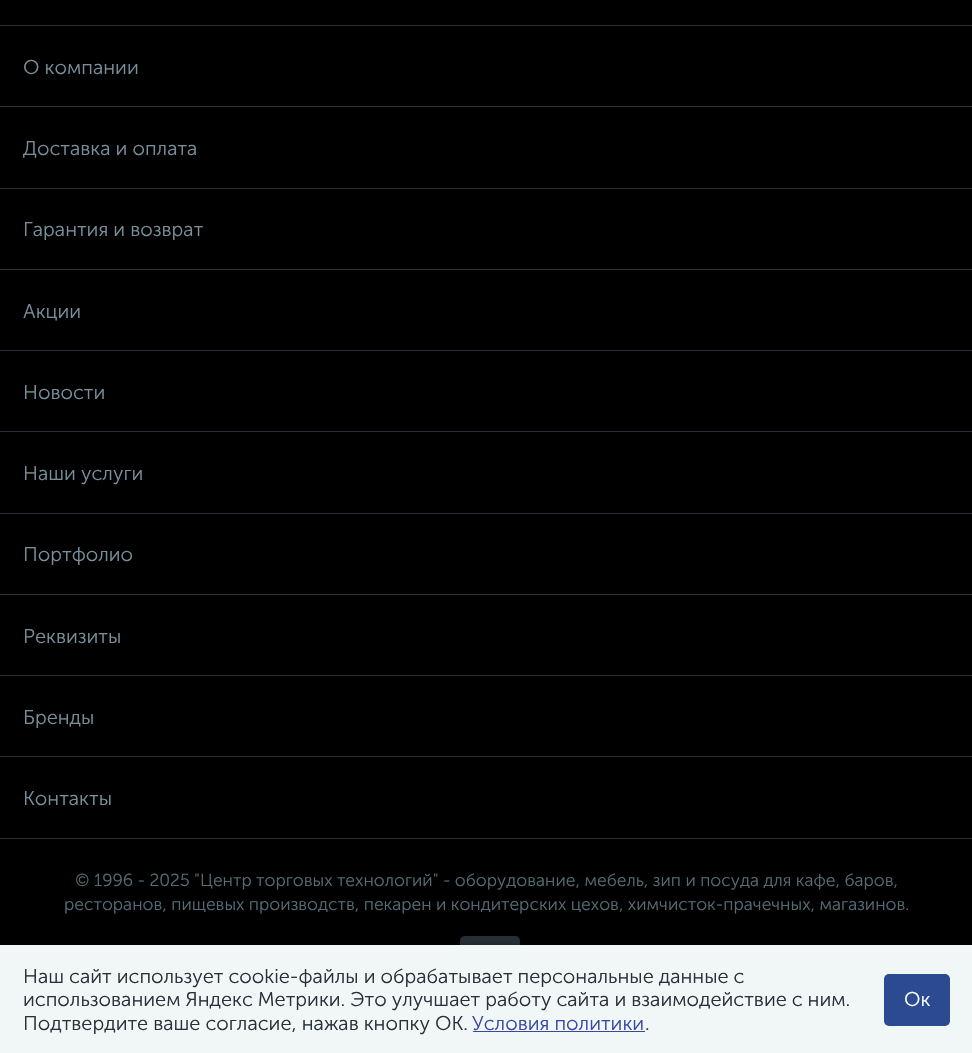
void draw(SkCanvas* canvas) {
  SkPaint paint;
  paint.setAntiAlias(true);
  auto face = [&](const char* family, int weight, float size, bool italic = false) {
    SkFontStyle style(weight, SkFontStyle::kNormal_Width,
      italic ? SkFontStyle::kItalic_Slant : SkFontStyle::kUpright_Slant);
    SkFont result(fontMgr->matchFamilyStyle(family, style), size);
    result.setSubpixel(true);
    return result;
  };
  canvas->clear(0xff000000);
  {
    const struct { float x, y, w, h; SkColor color; } items[] = {
      {0, 25, 972, 1, 0xff263238},
      {0, 106, 972, 1, 0xff263238},
      {0, 188, 972, 1, 0xff263238},
      {0, 269, 972, 1, 0xff263238},
      {0, 350, 972, 1, 0xff263238},
      {0, 431, 972, 1, 0xff263238},
      {0, 513, 972, 1, 0xff263238},
      {0, 594, 972, 1, 0xff263238},
      {0, 675, 972, 1, 0xff263238},
      {0, 756, 972, 1, 0xff263238},
      {0, 838, 972, 1, 0xff263238},
    };
    for (auto [x, y, w, h, color] : items) {
      paint.setColor(color);
      canvas->drawRect(SkRect::MakeXYWH(x, y, w, h), paint);
    }
  }
  paint.setColor(0xff262f34);
  canvas->drawRoundRect(SkRect::MakeXYWH(460, 936, 60, 60), 5, 5, paint);
  paint.setColor(0x33000000);
  paint.setMaskFilter(SkMaskFilter::MakeBlur(kNormal_SkBlurStyle, 3));
  canvas->drawRect(SkRect::MakeXYWH(0, 945, 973, 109), paint);
  paint.setMaskFilter(nullptr);
  paint.setColor(0xfff1f6f7);
  canvas->drawRect(SkRect::MakeXYWH(0, 945, 972, 108), paint);
  paint.setColor(0xff3847a2);
  canvas->drawRect(SkRect::MakeXYWH(473, 1031, 172, 1), paint);
  paint.setColor(0xff2b4a8f);
  canvas->drawRoundRect(SkRect::MakeXYWH(884, 974, 66, 52), 5, 5, paint);
  auto f0 = face("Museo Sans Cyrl", 300, 20);
  paint.setColor(0xff78909c);
  {
    const struct { const char* s; float x, y; } items[] = {
      {"О компании", 23, 74},
      {"Доставка и оплата", 23, 155},
      {"Гарантия и возврат", 23, 236},
      {"Акции", 23, 318},
      {"Новости", 23, 399},
      {"Наши услуги", 23, 480},
      {"Портфолио", 23, 561},
      {"Реквизиты", 23, 643},
      {"Бренды", 23, 724},
      {"Контакты", 23, 805},
    };
    for (auto [s, x, y] : items) {
      canvas->drawString(s, x, y, f0, paint);
    }
  }
  auto f1 = face("Museo Sans Cyrl", 300, 17.5f);
  paint.setColor(0xff566b75);
  canvas->drawString("© 1996 - 2025 \"Центр торговых технологий\" - оборудование, мебель, зип и посуда для кафе, баров,", 75, 886, f1, paint);
  canvas->drawString("ресторанов, пищевых производств, пекарен и кондитерских цехов, химчисток-прачечных, магазинов.", 64, 910, f1, paint);
  paint.setColor(0xff263238);
  {
    const struct { const char* s; float x, y; } items[] = {
      {"Наш сайт использует cookie-файлы и обрабатывает персональные данные с", 23, 983},
      {"использованием Яндекс Метрики. Это улучшает работу сайта и взаимодействие с ним.", 23, 1006},
      {"Подтвердите ваше согласие, нажав кнопку ОК.", 23, 1030},
    };
    for (auto [s, x, y] : items) {
      canvas->drawString(s, x, y, f0, paint);
    }
  }
  paint.setColor(0xff3847a2);
  canvas->drawString("Условия политики", 472, 1030, f0, paint);
  paint.setColor(0xff263238);
  canvas->drawString(".", 645, 1030, f0, paint);
  paint.setColor(0xffffffff);
  canvas->drawString("Ок", 904, 1006, f0, paint);
}
